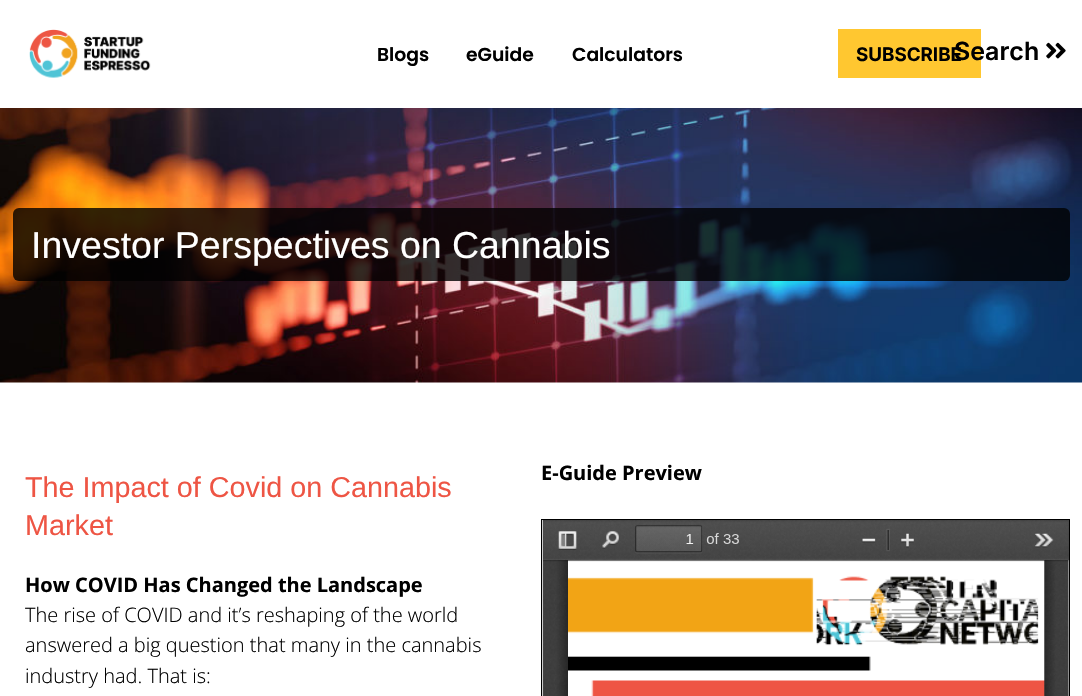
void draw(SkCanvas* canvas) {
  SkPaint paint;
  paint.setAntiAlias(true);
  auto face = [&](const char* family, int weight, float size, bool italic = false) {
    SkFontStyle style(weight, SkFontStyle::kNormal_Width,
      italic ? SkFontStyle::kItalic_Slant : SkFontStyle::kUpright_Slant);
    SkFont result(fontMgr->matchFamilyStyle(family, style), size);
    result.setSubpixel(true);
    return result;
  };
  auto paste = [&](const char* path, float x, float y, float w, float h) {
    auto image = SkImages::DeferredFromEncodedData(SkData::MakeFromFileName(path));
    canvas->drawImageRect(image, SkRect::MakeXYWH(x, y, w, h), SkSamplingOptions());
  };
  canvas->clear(0xffffffff);
  paste("img/1.png", 29, 29, 122, 49);
  paint.setColor(0xffffc730);
  canvas->drawRect(SkRect::MakeXYWH(838, 29, 143, 49), paint);
  paste("img/2.png", 1046, 42, 20, 17);
  paste("img/3.png", 0, 108, 1082, 275);
  paint.setColor(0xcc000000);
  canvas->drawRoundRect(SkRect::MakeXYWH(13, 208, 1057, 73), 6, 6, paint);
  paint.setStroke(true);
  paint.setStrokeWidth(1);
  paint.setColor(0xff000000);
  canvas->drawRect(SkRect::MakeXYWH(541.5f, 519.5f, 528, 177), paint);
  paste("img/4.png", 542, 520, 527, 176);
  auto f0 = face("Poppins", 600, 18.75f);
  paint.setStroke(false);
  {
    const struct { const char* s; float x, y; } items[] = {
      {"Blogs", 377, 61},
      {"eGuide", 466, 61},
      {"Calculators", 572, 61},
    };
    for (auto [s, x, y] : items) {
      canvas->drawString(s, x, y, f0, paint);
    }
  }
  auto f1 = face("Inter", 700, 18.75f);
  canvas->drawString("SUBSCRIBE", 856, 61, f1, paint);
  auto f2 = face("Inter", 600, 25);
  canvas->drawString("Search", 954, 60, f2, paint);
  auto f3 = face("Liberation Sans", 400, 37.5f);
  paint.setColor(0xffffffff);
  canvas->drawString("Investor Perspectives on Cannabis", 31, 258, f3, paint);
  auto f4 = face("Open Sans", 700, 20);
  paint.setColor(0xff000000);
  canvas->drawString("E-Guide Preview", 541, 480, f4, paint);
  auto f5 = face("Liberation Sans", 400, 28.75f);
  paint.setColor(0xffee5544);
  canvas->drawString("The Impact of Covid on Cannabis", 25, 497, f5, paint);
  canvas->drawString("Market", 25, 535, f5, paint);
  paint.setColor(0xff000000);
  canvas->drawString("How COVID Has Changed the Landscape", 25, 592, f4, paint);
  auto f6 = face("Open Sans", 300, 20);
  {
    const struct { const char* s; float x, y; } items[] = {
      {"The rise of COVID and it’s reshaping of the world", 25, 622},
      {"answered a big question that many in the cannabis", 25, 652},
      {"industry had. That is:", 25, 683},
    };
    for (auto [s, x, y] : items) {
      canvas->drawString(s, x, y, f6, paint);
    }
  }
}
